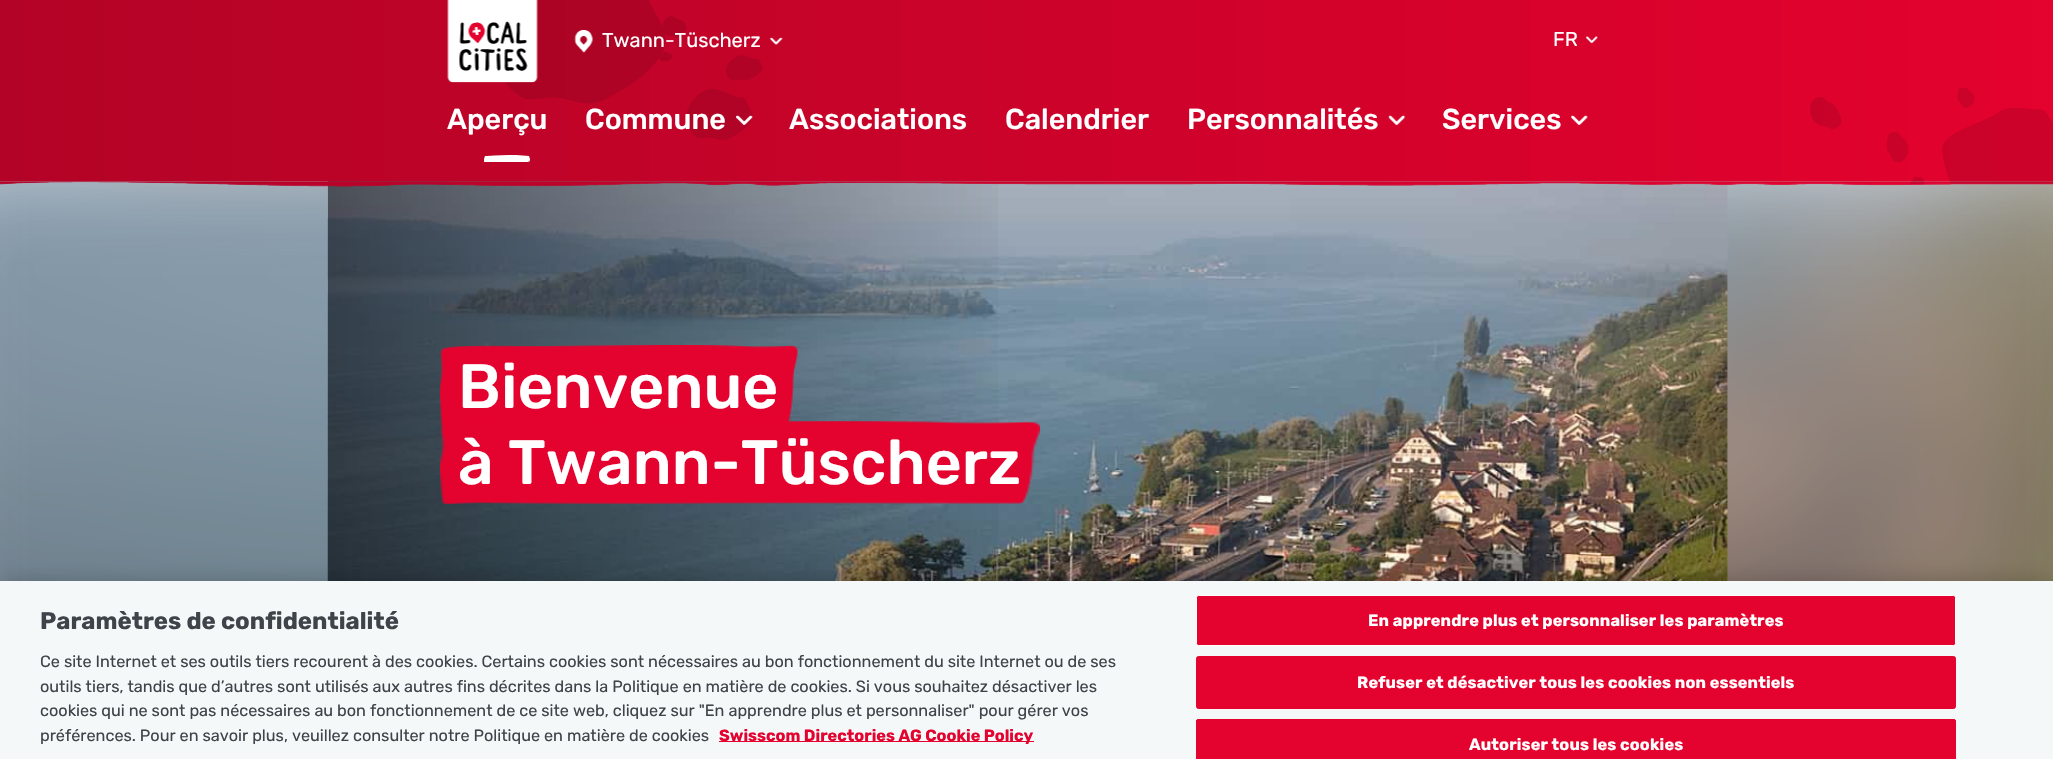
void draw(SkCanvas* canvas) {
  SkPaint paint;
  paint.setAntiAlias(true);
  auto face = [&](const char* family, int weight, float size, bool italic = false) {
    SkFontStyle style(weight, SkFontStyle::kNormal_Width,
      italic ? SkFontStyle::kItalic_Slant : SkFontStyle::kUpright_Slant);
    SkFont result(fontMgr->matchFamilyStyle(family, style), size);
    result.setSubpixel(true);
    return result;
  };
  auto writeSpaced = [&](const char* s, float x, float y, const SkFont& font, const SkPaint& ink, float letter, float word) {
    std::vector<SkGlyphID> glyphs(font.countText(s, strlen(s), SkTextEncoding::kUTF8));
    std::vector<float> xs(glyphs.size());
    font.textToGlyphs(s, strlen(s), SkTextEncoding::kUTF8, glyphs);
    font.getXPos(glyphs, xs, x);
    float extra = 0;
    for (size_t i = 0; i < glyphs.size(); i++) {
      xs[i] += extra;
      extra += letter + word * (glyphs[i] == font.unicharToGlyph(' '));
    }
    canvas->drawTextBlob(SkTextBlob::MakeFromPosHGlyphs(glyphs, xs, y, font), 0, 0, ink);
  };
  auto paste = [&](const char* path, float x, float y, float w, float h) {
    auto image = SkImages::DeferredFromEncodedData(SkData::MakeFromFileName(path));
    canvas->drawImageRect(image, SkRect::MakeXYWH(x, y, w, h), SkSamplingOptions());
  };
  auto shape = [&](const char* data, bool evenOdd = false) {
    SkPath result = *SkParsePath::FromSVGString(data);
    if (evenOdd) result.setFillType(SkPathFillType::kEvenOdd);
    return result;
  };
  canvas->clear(0xffffffff);
  {
    const SkColor colors[] = {0xffb30326, 0xffe4022e};
    const float stops[] = {0, 1};
    const SkPoint ends[] = {{0, 91}, {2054, 91}};
    paint.setShader(SkGradientShader::MakeLinear(ends, colors, stops, 2, SkTileMode::kClamp));
    paint.setAlpha(255);
  }
  canvas->drawRect(SkRect::MakeXYWH(0, 0, 2053, 181), paint);
  paste("img/1.png", 505, 0, 258, 140);
  paste("img/2.png", 447, 0, 91, 83);
  paste("img/3.png", 574, 30, 19, 23);
  paste("img/4.png", 769, 37, 14, 8);
  paste("img/5.png", 1586, 36, 12, 7);
  paint.setShader(nullptr);
  paint.setColor(0xffffffff);
  canvas->drawPath(shape("M484 162V159L485 156H487C497 155 506 155 516 155L529 156L530 159C530 162 529 162 525 162Z", true), paint);
  paste("img/6.png", 736, 115, 17, 10);
  paste("img/7.png", 1388, 115, 18, 10);
  paste("img/8.png", 1571, 115, 17, 10);
  paste("img/11.png", 0, 181, 2053, 400);
  paste("img/12.png", 327, 181, 1401, 400);
  {
    const SkColor colors[] = {0x80000000, 0x00000000};
    const float stops[] = {0, 0.5f};
    const SkPoint ends[] = {{328, 539}, {1728, 539}};
    paint.setShader(SkGradientShader::MakeLinear(ends, colors, stops, 2, SkTileMode::kClamp));
    paint.setAlpha(255);
  }
  canvas->drawRect(SkRect::MakeXYWH(328, 181, 670, 400), paint);
  paste("img/10.png", 0, 181, 2053, 6);
  paste("img/9.png", 1810, 88, 243, 96);
  paste("img/13.png", 440, 345, 358, 83);
  paste("img/14.png", 440, 421, 600, 83);
  paint.setShader(nullptr);
  paint.setColor(0x33000000);
  paint.setMaskFilter(SkMaskFilter::MakeBlur(kNormal_SkBlurStyle, 11));
  canvas->drawRect(SkRect::MakeXYWH(0, 581, 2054, 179), paint);
  paint.setMaskFilter(nullptr);
  paint.setColor(0xfff5f8f9);
  canvas->drawRect(SkRect::MakeXYWH(0, 581, 2053, 178), paint);
  paint.setColor(0xffe4022e);
  canvas->drawRect(SkRect::MakeXYWH(719, 741, 315, 1), paint);
  canvas->drawRoundRect(SkRect::MakeXYWH(1196.5f, 595.5f, 759, 50), 2, 2, paint);
  paint.setStroke(true);
  paint.setStrokeWidth(1);
  paint.setColor(0xffffffff);
  canvas->drawRoundRect(SkRect::MakeXYWH(1196.5f, 595.5f, 759, 50), 2, 2, paint);
  paint.setStroke(false);
  paint.setColor(0xffe4022e);
  canvas->drawRoundRect(SkRect::MakeXYWH(1196.5f, 656.5f, 759, 52), 2, 2, paint);
  paint.setStroke(true);
  canvas->drawRoundRect(SkRect::MakeXYWH(1196.5f, 656.5f, 759, 52), 2, 2, paint);
  paint.setStroke(false);
  canvas->drawPath(shape("M1198.5 719H1953.5C1955 719 1956 720 1956 721.5V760H1196V721.5C1196 720 1197 719 1198.5 719Z"), paint);
  paint.setStroke(true);
  canvas->drawRoundRect(SkRect::MakeXYWH(1196.5f, 719.5f, 759, 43), 2, 2, paint);
  auto f0 = face("Rubik", 400, 20);
  paint.setStroke(false);
  paint.setColor(0xffffffff);
  canvas->drawString("Twann-Tüscherz", 602, 47, f0, paint);
  canvas->drawString("FR", 1553, 46, f0, paint);
  auto f1 = face("Rubik", 500, 28.75f);
  {
    const struct { const char* s; float x, y; } items[] = {
      {"Aperçu", 447, 129},
      {"Commune", 585, 129},
      {"Associations", 789, 129},
      {"Calendrier", 1005, 129},
      {"Personnalités", 1187, 129},
      {"Services", 1442, 129},
    };
    for (auto [s, x, y] : items) {
      canvas->drawString(s, x, y, f1, paint);
    }
  }
  auto f2 = face("Rubik", 500, 62.5f);
  canvas->drawString("Bienvenue", 458, 408, f2, paint);
  canvas->drawString("à Twann-Tüscherz", 458, 484, f2, paint);
  auto f3 = face("Rubik", 700, 24);
  paint.setColor(0xff3e4449);
  canvas->drawString("Paramètres de confidentialité", 40, 629, f3, paint);
  auto f4 = face("Rubik", 400, 16.25f);
  {
    const struct { const char* s; float x, y; } items[] = {
      {"Ce site Internet et ses outils tiers recourent à des cookies. Certains cookies sont nécessaires au bon fonctionnement du site Internet ou de ses", 40, 667},
      {"outils tiers, tandis que d’autres sont utilisés aux autres fins décrites dans la Politique en matière de cookies. Si vous souhaitez désactiver les", 40, 692},
      {"cookies qui ne sont pas nécessaires au bon fonctionnement de ce site web, cliquez sur \"En apprendre plus et personnaliser\" pour gérer vos", 40, 716},
      {"préférences. Pour en savoir plus, veuillez consulter notre Politique en matière de cookies", 40, 741},
    };
    for (auto [s, x, y] : items) {
      canvas->drawString(s, x, y, f4, paint);
    }
  }
  auto f5 = face("Rubik", 700, 16.25f);
  paint.setColor(0xffe4022e);
  canvas->drawString("Swisscom Directories AG Cookie Policy", 719, 741, f5, paint);
  paint.setColor(0xffffffff);
  {
    const struct { const char* s; float x, y; } items[] = {
      {"En apprendre plus et personnaliser les paramètres", 1368, 626},
      {"Refuser et désactiver tous les cookies non essentiels", 1357, 688},
      {"Autoriser tous les cookies", 1469, 750},
    };
    for (auto [s, x, y] : items) {
      writeSpaced(s, x, y, f5, paint, 0.15f, 0);
    }
  }
}
